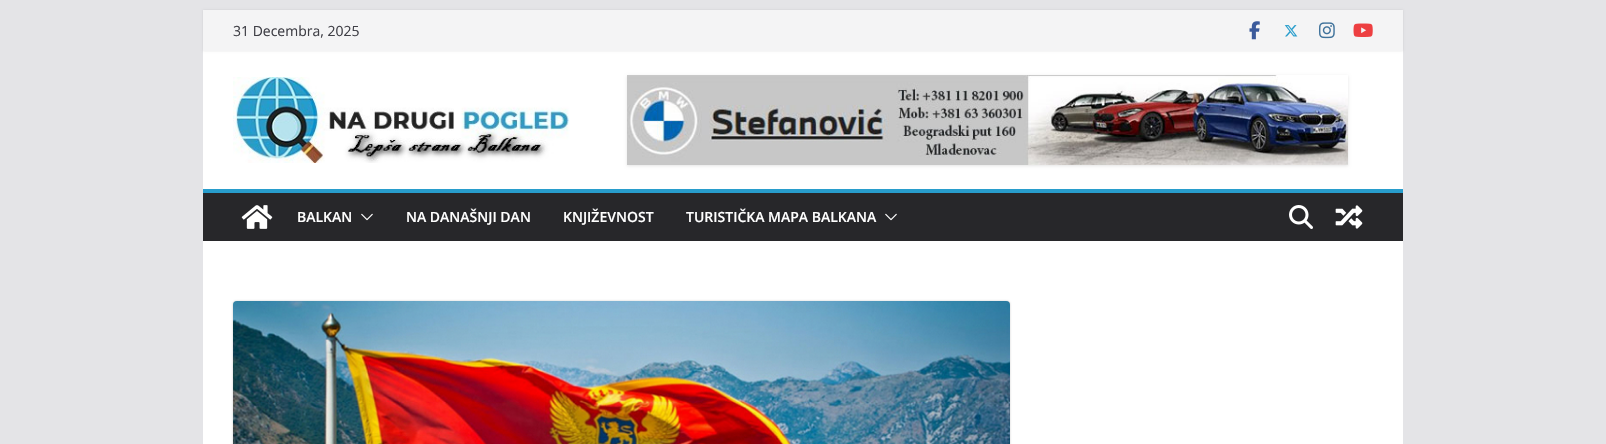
void draw(SkCanvas* canvas) {
  SkPaint paint;
  paint.setAntiAlias(true);
  auto face = [&](const char* family, int weight, float size, bool italic = false) {
    SkFontStyle style(weight, SkFontStyle::kNormal_Width,
      italic ? SkFontStyle::kItalic_Slant : SkFontStyle::kUpright_Slant);
    SkFont result(fontMgr->matchFamilyStyle(family, style), size);
    result.setSubpixel(true);
    return result;
  };
  auto paste = [&](const char* path, float x, float y, float w, float h) {
    auto image = SkImages::DeferredFromEncodedData(SkData::MakeFromFileName(path));
    canvas->drawImageRect(image, SkRect::MakeXYWH(x, y, w, h), SkSamplingOptions());
  };
  canvas->clear(0xffe4e4e7);
  paint.setColor(0xffffffff);
  canvas->drawRect(SkRect::MakeXYWH(203, 51, 1200, 138), paint);
  paint.setColor(0x1a000000);
  paint.setMaskFilter(SkMaskFilter::MakeBlur(kNormal_SkBlurStyle, 1));
  canvas->drawRect(SkRect::MakeXYWH(203, 10, 1200, 41), paint);
  paint.setMaskFilter(nullptr);
  paint.setColor(0xfff4f4f5);
  canvas->drawRect(SkRect::MakeXYWH(203, 10, 1200, 41), paint);
  paste("img/1.png", 1249, 21, 11, 19);
  paste("img/2.png", 1284, 25, 14, 12);
  paste("img/3.png", 1319, 22, 16, 17);
  paste("img/4.png", 1353, 23, 20, 14);
  paste("img/5.png", 233, 77, 337, 86);
  paint.setColor(0x1a000000);
  paint.setMaskFilter(SkMaskFilter::MakeBlur(kNormal_SkBlurStyle, 1.5f));
  canvas->drawRect(SkRect::MakeXYWH(627, 76, 721, 90), paint);
  paint.setMaskFilter(nullptr);
  paste("img/6.png", 627, 75, 721, 90);
  paint.setColor(0xff27272a);
  canvas->drawRect(SkRect::MakeXYWH(203, 193, 1200, 48), paint);
  paint.setColor(0xff289dcc);
  canvas->drawRect(SkRect::MakeXYWH(203, 189, 1200, 4), paint);
  paste("img/7.png", 241, 205, 32, 24);
  paste("img/8.png", 361, 213, 12, 8);
  paste("img/8.png", 885, 213, 12, 8);
  paste("img/9.png", 1289, 205, 24, 24);
  paste("img/10.png", 1335, 205, 28, 24);
  paint.setColor(0xffffffff);
  canvas->drawRect(SkRect::MakeXYWH(203, 241, 1200, 203), paint);
  paint.setColor(0x3d000000);
  paint.setMaskFilter(SkMaskFilter::MakeBlur(kNormal_SkBlurStyle, 1));
  canvas->drawRoundRect(SkRect::MakeXYWH(233, 301, 777, 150), 4, 4, paint);
  paint.setMaskFilter(nullptr);
  paste("img/11.png", 233, 301, 777, 143);
  auto f0 = face("Open Sans", 400, 14);
  paint.setColor(0xff3f3f46);
  canvas->drawString("31 Decembra, 2025", 233, 36, f0, paint);
  auto f1 = face("Open Sans", 600, 14);
  paint.setColor(0xffffffff);
  {
    const struct { const char* s; float x, y; } items[] = {
      {"BALKAN", 297, 222},
      {"NA DANAŠNJI DAN", 406, 222},
      {"KNJIŽEVNOST", 563, 222},
      {"TURISTIČKA MAPA BALKANA", 686, 222},
    };
    for (auto [s, x, y] : items) {
      canvas->drawString(s, x, y, f1, paint);
    }
  }
}
